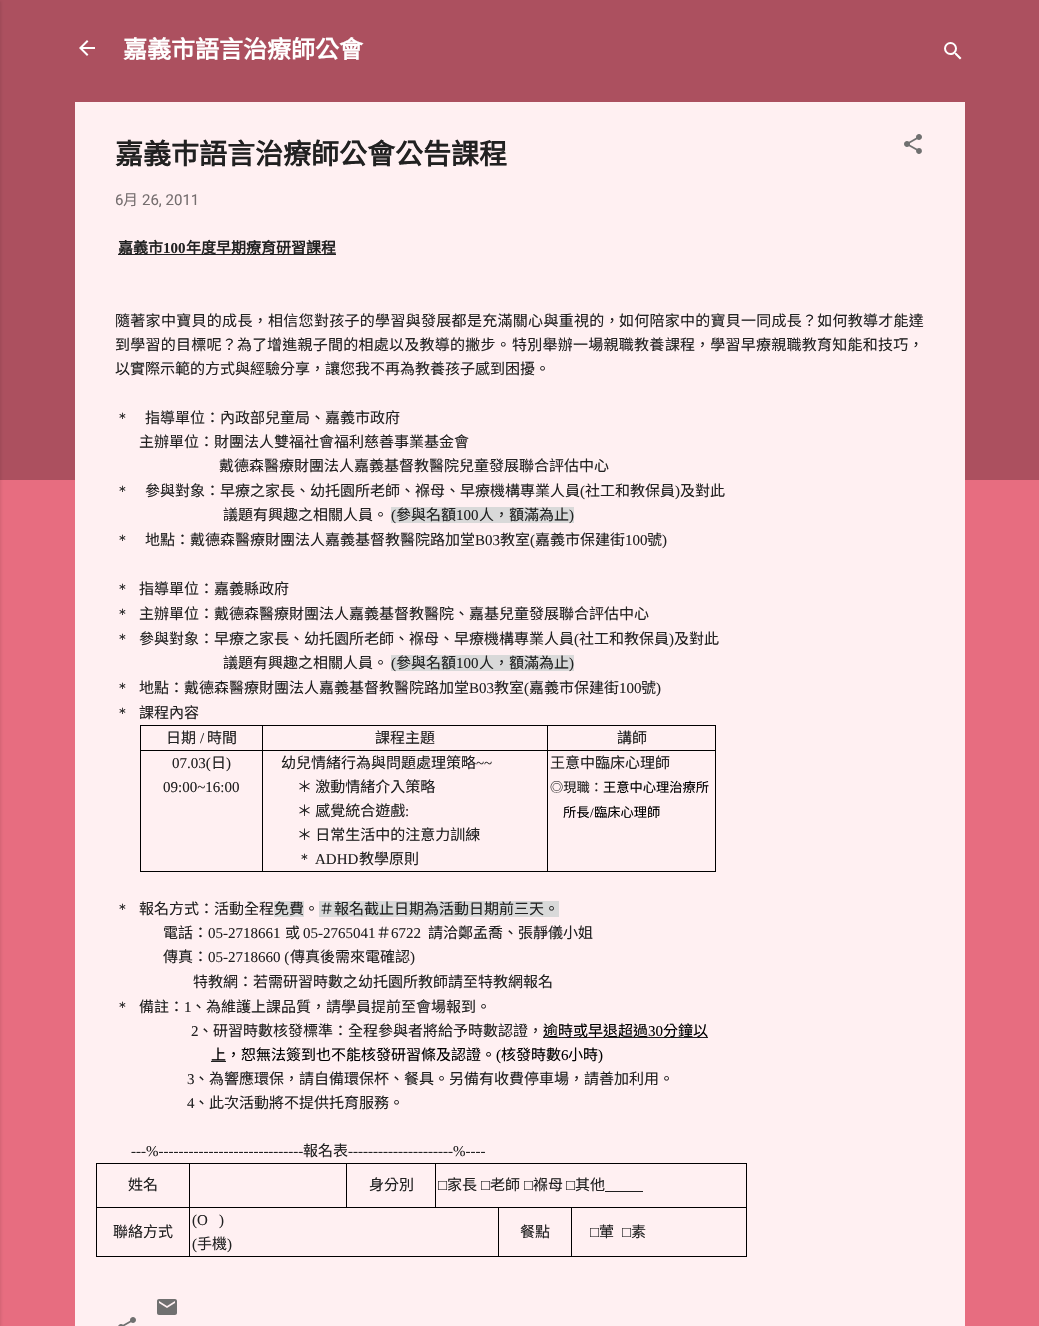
void draw(SkCanvas* canvas) {
  SkPaint paint;
  paint.setAntiAlias(true);
  auto face = [&](const char* family, int weight, float size, bool italic = false) {
    SkFontStyle style(weight, SkFontStyle::kNormal_Width,
      italic ? SkFontStyle::kItalic_Slant : SkFontStyle::kUpright_Slant);
    SkFont result(fontMgr->matchFamilyStyle(family, style), size);
    result.setSubpixel(true);
    return result;
  };
  auto writeSpaced = [&](const char* s, float x, float y, const SkFont& font, const SkPaint& ink, float letter, float word) {
    std::vector<SkGlyphID> glyphs(font.countText(s, strlen(s), SkTextEncoding::kUTF8));
    std::vector<float> xs(glyphs.size());
    font.textToGlyphs(s, strlen(s), SkTextEncoding::kUTF8, glyphs);
    font.getXPos(glyphs, xs, x);
    float extra = 0;
    for (size_t i = 0; i < glyphs.size(); i++) {
      xs[i] += extra;
      extra += letter + word * (glyphs[i] == font.unicharToGlyph(' '));
    }
    canvas->drawTextBlob(SkTextBlob::MakeFromPosHGlyphs(glyphs, xs, y, font), 0, 0, ink);
  };
  auto paste = [&](const char* path, float x, float y, float w, float h) {
    auto image = SkImages::DeferredFromEncodedData(SkData::MakeFromFileName(path));
    canvas->drawImageRect(image, SkRect::MakeXYWH(x, y, w, h), SkSamplingOptions());
  };
  canvas->clear(0xffe76d80);
  paint.setColor(0xffac505f);
  canvas->drawRect(SkRect::MakeXYWH(0, 0, 1039, 480), paint);
  paint.setColor(0x1a000000);
  paint.setMaskFilter(SkMaskFilter::MakeBlur(kNormal_SkBlurStyle, 1.5f));
  canvas->drawRect(SkRect::MakeXYWH(-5, 1, 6, 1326), paint);
  paint.setMaskFilter(nullptr);
  paste("img/1.png", 79, 40, 16, 16);
  paste("img/2.png", 944, 42, 18, 18);
  paint.setColor(0xfffff0f2);
  canvas->drawRect(SkRect::MakeXYWH(75, 102, 890, 1224), paint);
  paste("img/3.png", 904, 134, 18, 20);
  {
    const struct { float x, y, w, h; SkColor color; } items[] = {
      {118, 254, 218, 1, 0xff201f20},
      {391, 507, 183, 16, 0xffd9d9d9},
      {391, 655, 183, 16, 0xffd9d9d9},
      {140, 725, 576, 1, 0xff000000},
      {715, 750, 1, 122, 0xff000000},
      {715, 725, 1, 26, 0xff000000},
      {547, 871, 169, 1, 0xff000000},
      {547, 750, 1, 122, 0xff000000},
      {547, 750, 169, 1, 0xff000000},
      {547, 725, 1, 26, 0xff000000},
      {262, 871, 286, 1, 0xff000000},
      {262, 750, 1, 122, 0xff000000},
      {262, 750, 286, 1, 0xff000000},
      {262, 725, 1, 26, 0xff000000},
      {140, 871, 123, 1, 0xff000000},
      {140, 750, 1, 122, 0xff000000},
      {140, 750, 123, 1, 0xff000000},
      {140, 725, 1, 26, 0xff000000},
      {274, 901, 30, 16, 0xffd9d9d9},
      {319, 901, 240, 16, 0xffd9d9d9},
      {543, 1037, 165, 1, 0xff201f20},
      {211, 1061, 15, 1, 0xff201f20},
      {96, 1163, 651, 1, 0xff000000},
      {746, 1207, 1, 50, 0xff000000},
      {746, 1163, 1, 45, 0xff000000},
      {571, 1256, 176, 1, 0xff000000},
      {571, 1207, 1, 50, 0xff000000},
      {498, 1256, 74, 1, 0xff000000},
      {498, 1207, 1, 50, 0xff000000},
      {435, 1207, 312, 1, 0xff000000},
      {435, 1163, 1, 45, 0xff000000},
      {346, 1207, 90, 1, 0xff000000},
      {346, 1163, 1, 45, 0xff000000},
      {189, 1256, 310, 1, 0xff000000},
      {189, 1207, 1, 50, 0xff000000},
      {189, 1207, 158, 1, 0xff000000},
      {189, 1163, 1, 45, 0xff000000},
      {96, 1256, 94, 1, 0xff000000},
      {96, 1207, 1, 50, 0xff000000},
      {96, 1207, 94, 1, 0xff000000},
      {96, 1163, 1, 45, 0xff000000},
      {605, 1191, 38, 1, 0xff201f20},
    };
    for (auto [x, y, w, h, color] : items) {
      paint.setColor(color);
      canvas->drawRect(SkRect::MakeXYWH(x, y, w, h), paint);
    }
  }
  paste("img/4.png", 157, 1299, 20, 16);
  paste("img/5.png", 118, 1317, 18, 9);
  auto f0 = face("Noto Sans CJK TC", 700, 24);
  paint.setColor(0xffffffff);
  canvas->drawString("嘉義市語言治療師公會", 123, 58, f0, paint);
  auto f1 = face("Noto Sans CJK TC", 700, 28);
  paint.setColor(0xff212121);
  canvas->drawString("嘉義巿語言治療師公會公告課程", 115, 164, f1, paint);
  auto f2 = face("Roboto", 400, 15);
  paint.setColor(0xff756e6f);
  canvas->drawString("6", 115, 205, f2, paint);
  auto f3 = face("Noto Sans CJK TC", 400, 15);
  canvas->drawString("月", 123, 205, f3, paint);
  canvas->drawString("26, 2011", 142, 205, f2, paint);
  auto f4 = face("Noto Sans CJK TC", 700, 15);
  paint.setColor(0xff212121);
  canvas->drawString("嘉義市", 118, 253, f4, paint);
  auto f5 = face("Liberation Serif", 700, 15);
  canvas->drawString("100", 163, 253, f5, paint);
  canvas->drawString("年度早期療育研習課程", 186, 253, f4, paint);
  writeSpaced("隨著家中寶貝的成長，相信您對孩子的學習與發展都是充滿關心與重視的，", 115, 326, f3, paint, 0.3f, 0);
  {
    const struct { const char* s; float x, y; } items[] = {
      {"如何陪家中的寶貝一同成長？如何教導才能達", 619, 326},
      {"到學習的目標呢？為了", 115, 350},
      {"增進親子間的相處以及教導的撇步。", 267, 350},
      {"特別舉辦一場親職教養", 512, 350},
    };
    for (auto [s, x, y] : items) {
      writeSpaced(s, x, y, f3, paint, 0.25f, 0);
    }
  }
  canvas->drawString("課程", 665, 350, f3, paint);
  writeSpaced("，學習早療親職教育知能和技巧，", 695, 350, f3, paint, 0.25f, 0);
  canvas->drawString("以實際示範的方式與經驗分享，讓您我不再為教養孩子感到困擾。", 115, 374, f3, paint);
  auto f6 = face("WenQuanYi Zen Hei", 500, 15);
  canvas->drawString("＊", 115, 423, f6, paint);
  {
    const struct { const char* s; float x, y; } items[] = {
      {"指導單位：內政部兒童局、嘉義市政府", 145, 423},
      {"主辦單位：財團法人雙福社會福利慈善事業基金會", 139, 447},
      {"戴德森醫療財團法人嘉義基督教醫院兒童發展聯合評估中心", 219, 471},
    };
    for (auto [s, x, y] : items) {
      canvas->drawString(s, x, y, f3, paint);
    }
  }
  canvas->drawString("＊", 115, 496, f6, paint);
  canvas->drawString("參與對象：早療之家長、幼托園所老師、褓母、早療機構專業人員", 145, 496, f3, paint);
  auto f7 = face("Liberation Serif", 400, 15);
  canvas->drawString("(", 580, 496, f7, paint);
  canvas->drawString("社工和教保員", 585, 496, f3, paint);
  canvas->drawString(")", 675, 496, f7, paint);
  canvas->drawString("及對此", 680, 496, f3, paint);
  canvas->drawString("議題有興趣之相關人員。", 223, 520, f3, paint);
  canvas->drawString("(", 391, 520, f7, paint);
  canvas->drawString("參與名額", 396, 520, f3, paint);
  canvas->drawString("100", 456, 520, f7, paint);
  canvas->drawString("人，額滿為止", 479, 520, f3, paint);
  canvas->drawString(")", 569, 520, f7, paint);
  canvas->drawString("＊", 115, 545, f6, paint);
  canvas->drawString("地點：戴德森醫療財團法人嘉義基督教醫院路加堂", 145, 545, f3, paint);
  canvas->drawString("B03", 475, 545, f7, paint);
  canvas->drawString("教室", 500, 545, f3, paint);
  canvas->drawString("(", 530, 545, f7, paint);
  canvas->drawString("嘉義市保建街", 535, 545, f3, paint);
  canvas->drawString("100", 625, 545, f7, paint);
  canvas->drawString("號", 647, 545, f3, paint);
  canvas->drawString(")", 662, 545, f7, paint);
  canvas->drawString("＊", 115, 594, f6, paint);
  canvas->drawString("指導單位：嘉義縣政府", 139, 594, f3, paint);
  canvas->drawString("＊", 115, 619, f6, paint);
  canvas->drawString("主辦單位：戴德森醫療財團法人嘉義基督教醫院、嘉基兒童發展聯合評估中心", 139, 619, f3, paint);
  canvas->drawString("＊", 115, 644, f6, paint);
  canvas->drawString("參與對象：早療之家長、幼托園所老師、褓母、早療機構專業人員", 139, 644, f3, paint);
  canvas->drawString("(", 574, 644, f7, paint);
  canvas->drawString("社工和教保員", 579, 644, f3, paint);
  canvas->drawString(")", 669, 644, f7, paint);
  canvas->drawString("及對此", 674, 644, f3, paint);
  canvas->drawString("議題有興趣之相關人員。", 223, 668, f3, paint);
  canvas->drawString("(", 391, 668, f7, paint);
  canvas->drawString("參與名額", 396, 668, f3, paint);
  canvas->drawString("100", 456, 668, f7, paint);
  canvas->drawString("人，額滿為止", 479, 668, f3, paint);
  canvas->drawString(")", 569, 668, f7, paint);
  canvas->drawString("＊", 115, 693, f6, paint);
  canvas->drawString("地點：戴德森醫療財團法人嘉義基督教醫院路加堂", 139, 693, f3, paint);
  canvas->drawString("B03", 469, 693, f7, paint);
  canvas->drawString("教室", 494, 693, f3, paint);
  canvas->drawString("(", 524, 693, f7, paint);
  canvas->drawString("嘉義市保建街", 529, 693, f3, paint);
  canvas->drawString("100", 619, 693, f7, paint);
  canvas->drawString("號", 641, 693, f3, paint);
  canvas->drawString(")", 656, 693, f7, paint);
  canvas->drawString("＊", 115, 718, f6, paint);
  canvas->drawString("課程內容", 139, 718, f3, paint);
  canvas->drawString("日期", 166, 743, f3, paint);
  canvas->drawString("/", 200, 743, f7, paint);
  {
    const struct { const char* s; float x, y; } items[] = {
      {"時間", 207, 743},
      {"課程主題", 375, 743},
      {"講師", 617, 743},
    };
    for (auto [s, x, y] : items) {
      canvas->drawString(s, x, y, f3, paint);
    }
  }
  canvas->drawString("07.03(", 172, 768, f7, paint);
  canvas->drawString("日", 211, 768, f3, paint);
  canvas->drawString(")", 226, 768, f7, paint);
  canvas->drawString("09:00~16:00", 163, 792, f7, paint);
  canvas->drawString("幼兒情緒行為與問題處理策略", 281, 768, f3, paint);
  canvas->drawString("~~", 476, 768, f7, paint);
  canvas->drawString("＊ 激動情緒介入策略", 297, 792, f3, paint);
  canvas->drawString("＊ 感覺統合遊戲", 297, 816, f3, paint);
  canvas->drawString(":", 405, 816, f7, paint);
  canvas->drawString("＊ 日常生活中的注意力訓練", 297, 840, f3, paint);
  canvas->drawString("＊", 297, 864, f6, paint);
  canvas->drawString("ADHD", 315, 864, f7, paint);
  canvas->drawString("教學原則", 359, 864, f3, paint);
  canvas->drawString("王意中臨床心理師", 550, 768, f3, paint);
  auto f8 = face("Noto Sans CJK TC", 400, 13.25f);
  canvas->drawString("◎現職：", 550, 792, f8, paint);
  paint.setColor(0xff000000);
  canvas->drawString("王意中心理治療所", 603, 792, f8, paint);
  canvas->drawString("所長", 563, 817, f8, paint);
  auto f9 = face("Liberation Serif", 400, 13.25f);
  canvas->drawString("/", 590, 817, f9, paint);
  canvas->drawString("臨床心理師", 594, 817, f8, paint);
  paint.setColor(0xff212121);
  canvas->drawString("＊", 115, 914, f6, paint);
  {
    const struct { const char* s; float x, y; } items[] = {
      {"報名方式：活動全程", 139, 914},
      {"免費。", 274, 914},
      {"＃報名截止日期為活動日期前三天。", 319, 914},
      {"電話：", 163, 938},
    };
    for (auto [s, x, y] : items) {
      canvas->drawString(s, x, y, f3, paint);
    }
  }
  canvas->drawString("05-2718661", 208, 938, f7, paint);
  canvas->drawString("或", 285, 938, f3, paint);
  canvas->drawString("05-2765041", 303, 938, f7, paint);
  canvas->drawString("＃", 376, 938, f3, paint);
  canvas->drawString("6722", 391, 938, f7, paint);
  canvas->drawString("請洽鄭孟喬、張靜儀小姐", 428, 938, f3, paint);
  canvas->drawString("傳真：", 163, 962, f3, paint);
  canvas->drawString("05-2718660 (", 208, 962, f7, paint);
  canvas->drawString("傳真後需來電確認", 290, 962, f3, paint);
  canvas->drawString(")", 410, 962, f7, paint);
  canvas->drawString("特教網：若需研習時數之幼托園所教師請至特教網報名", 193, 987, f3, paint);
  canvas->drawString("＊", 115, 1012, f6, paint);
  canvas->drawString("備註：", 139, 1012, f3, paint);
  canvas->drawString("1", 184, 1012, f7, paint);
  canvas->drawString("、為維護上課品質，請學員提前至會場報到。", 191, 1012, f3, paint);
  canvas->drawString("2", 191, 1036, f7, paint);
  canvas->drawString("、研習時數核發標準：全程參與者將給予時數認證，", 198, 1036, f3, paint);
  paint.setColor(0xff000000);
  canvas->drawString("逾時或早退超過", 543, 1036, f3, paint);
  canvas->drawString("30", 648, 1036, f7, paint);
  canvas->drawString("分鐘以", 663, 1036, f3, paint);
  canvas->drawString("上，恕無法簽到也不能核發研習條及認證。", 211, 1060, f3, paint);
  canvas->drawString("(", 496, 1060, f7, paint);
  canvas->drawString("核發時數", 501, 1060, f3, paint);
  canvas->drawString("6", 561, 1060, f7, paint);
  canvas->drawString("小時", 568, 1060, f3, paint);
  canvas->drawString(")", 598, 1060, f7, paint);
  paint.setColor(0xff212121);
  canvas->drawString("3", 187, 1084, f7, paint);
  canvas->drawString("、為響應環保，請自備環保杯、餐具。另備有收費停車場，請善加利用。", 194, 1084, f3, paint);
  canvas->drawString("4", 187, 1108, f7, paint);
  canvas->drawString("、此次活動將不提供托育服務。", 194, 1108, f3, paint);
  canvas->drawString("---%-----------------------------", 131, 1156, f7, paint);
  canvas->drawString("報名表", 303, 1156, f3, paint);
  canvas->drawString("---------------------%----", 348, 1156, f7, paint);
  canvas->drawString("姓名", 128, 1190, f3, paint);
  canvas->drawString("身分別", 369, 1190, f3, paint);
  canvas->drawString("□", 438, 1190, f7, paint);
  canvas->drawString("家長", 447, 1190, f3, paint);
  canvas->drawString("□", 481, 1190, f7, paint);
  canvas->drawString("老師", 490, 1190, f3, paint);
  canvas->drawString("□", 524, 1190, f7, paint);
  canvas->drawString("褓母", 533, 1190, f3, paint);
  canvas->drawString("□", 566, 1190, f7, paint);
  canvas->drawString("其他", 575, 1190, f3, paint);
  canvas->drawString("聯絡方式", 113, 1237, f3, paint);
  {
    const struct { const char* s; float x, y; } items[] = {
      {"(O", 192, 1225},
      {")", 219, 1225},
      {"(", 192, 1249},
    };
    for (auto [s, x, y] : items) {
      canvas->drawString(s, x, y, f7, paint);
    }
  }
  canvas->drawString("手機", 197, 1249, f3, paint);
  canvas->drawString(")", 227, 1249, f7, paint);
  canvas->drawString("餐點", 520, 1237, f3, paint);
  canvas->drawString("□", 590, 1237, f7, paint);
  canvas->drawString("葷", 599, 1237, f3, paint);
  canvas->drawString("□", 622, 1237, f7, paint);
  canvas->drawString("素", 631, 1237, f3, paint);
}
